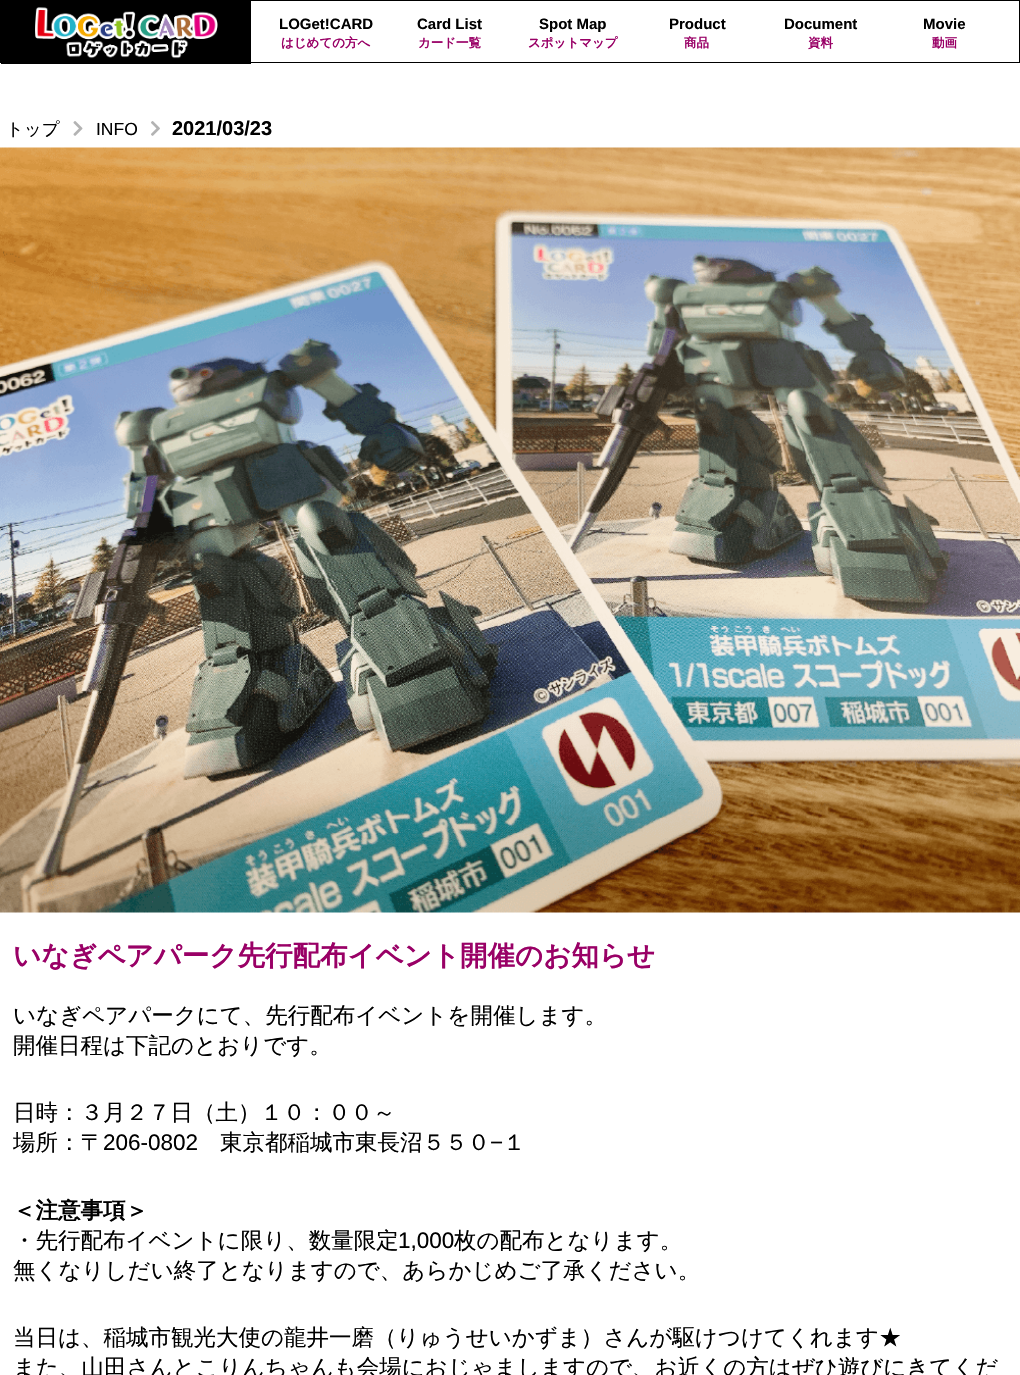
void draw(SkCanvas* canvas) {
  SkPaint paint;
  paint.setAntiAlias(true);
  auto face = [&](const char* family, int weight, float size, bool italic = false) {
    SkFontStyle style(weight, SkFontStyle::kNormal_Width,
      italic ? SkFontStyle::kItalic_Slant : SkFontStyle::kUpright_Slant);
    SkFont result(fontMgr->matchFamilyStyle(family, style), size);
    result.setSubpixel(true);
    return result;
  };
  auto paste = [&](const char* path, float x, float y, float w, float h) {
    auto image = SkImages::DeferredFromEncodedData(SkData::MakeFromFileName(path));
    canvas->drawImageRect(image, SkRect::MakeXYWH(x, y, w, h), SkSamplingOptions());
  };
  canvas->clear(0xffffffff);
  paint.setStroke(true);
  paint.setStrokeWidth(1);
  paint.setColor(0xff000000);
  canvas->drawRect(SkRect::MakeXYWH(0.5f, 0.5f, 1019, 62), paint);
  paint.setStroke(false);
  canvas->drawRect(SkRect::MakeXYWH(1, 1, 250, 63), paint);
  paste("img/1.png", 35, 7, 183, 52);
  paste("img/2.png", 73, 121, 10, 15);
  paste("img/3.png", 151, 121, 9, 15);
  paste("img/4.png", 0, 147, 1020, 766);
  auto f0 = face("Liberation Sans", 700, 15);
  canvas->drawString("LOGet!CARD", 279, 29, f0, paint);
  auto f1 = face("WenQuanYi Zen Hei", 700, 12.5f);
  paint.setColor(0xff990066);
  canvas->drawString("はじめての方へ", 281, 47, f1, paint);
  paint.setColor(0xff000000);
  canvas->drawString("Card List", 417, 29, f0, paint);
  paint.setColor(0xff990066);
  canvas->drawString("カード一覧", 418, 47, f1, paint);
  paint.setColor(0xff000000);
  canvas->drawString("Spot Map", 539, 29, f0, paint);
  paint.setColor(0xff990066);
  canvas->drawString("スポットマップ", 528, 47, f1, paint);
  paint.setColor(0xff000000);
  canvas->drawString("Product", 669, 29, f0, paint);
  paint.setColor(0xff990066);
  canvas->drawString("商品", 684, 47, f1, paint);
  paint.setColor(0xff000000);
  canvas->drawString("Document", 784, 29, f0, paint);
  paint.setColor(0xff990066);
  canvas->drawString("資料", 808, 47, f1, paint);
  paint.setColor(0xff000000);
  canvas->drawString("Movie", 923, 29, f0, paint);
  paint.setColor(0xff990066);
  canvas->drawString("動画", 932, 47, f1, paint);
  auto f2 = face("WenQuanYi Zen Hei", 500, 17.5f);
  paint.setColor(0xff000000);
  canvas->drawString("トップ", 6, 135, f2, paint);
  auto f3 = face("Liberation Sans", 400, 17.5f);
  canvas->drawString("INFO", 96, 135, f3, paint);
  auto f4 = face("Liberation Sans", 700, 20);
  canvas->drawString("2021/03/23", 172, 135, f4, paint);
  auto f5 = face("WenQuanYi Zen Hei", 700, 27.5f);
  paint.setColor(0xff990066);
  canvas->drawString("いなぎペアパーク先行配布イベント開催のお知らせ", 13, 965, f5, paint);
  auto f6 = face("WenQuanYi Zen Hei", 500, 22.5f);
  paint.setColor(0xff000000);
  {
    const struct { const char* s; float x, y; } items[] = {
      {"いなぎペアパークにて、先行配布イベントを開催します。", 13, 1023},
      {"開催日程は下記のとおりです。", 13, 1053},
      {"日時：３月２７日（土）１０：００～", 13, 1120},
      {"場所：〒", 13, 1150},
    };
    for (auto [s, x, y] : items) {
      canvas->drawString(s, x, y, f6, paint);
    }
  }
  auto f7 = face("Liberation Sans", 400, 22.5f);
  canvas->drawString("206-0802", 103, 1150, f7, paint);
  canvas->drawString("東京都稲城市東長沼５５０", 220, 1150, f6, paint);
  canvas->drawString("−", 490, 1150, f7, paint);
  canvas->drawString("１", 503, 1150, f6, paint);
  auto f8 = face("WenQuanYi Zen Hei", 700, 22.5f);
  canvas->drawString("＜注意事項＞", 13, 1218, f8, paint);
  canvas->drawString("・先行配布イベントに限り、数量限定", 13, 1248, f6, paint);
  canvas->drawString("1,000", 398, 1248, f7, paint);
  {
    const struct { const char* s; float x, y; } items[] = {
      {"枚の配布となります。", 454, 1248},
      {"無くなりしだい終了となりますので、あらかじめご了承ください。", 13, 1278},
      {"当日は、稲城市観光大使の龍井一磨（りゅうせいかずま）さんが駆けつけてくれます★", 13, 1345},
      {"また、山田さんとこりんちゃんも会場におじゃましますので、お近くの方はぜひ遊びにきてくだ", 13, 1375},
    };
    for (auto [s, x, y] : items) {
      canvas->drawString(s, x, y, f6, paint);
    }
  }
}
